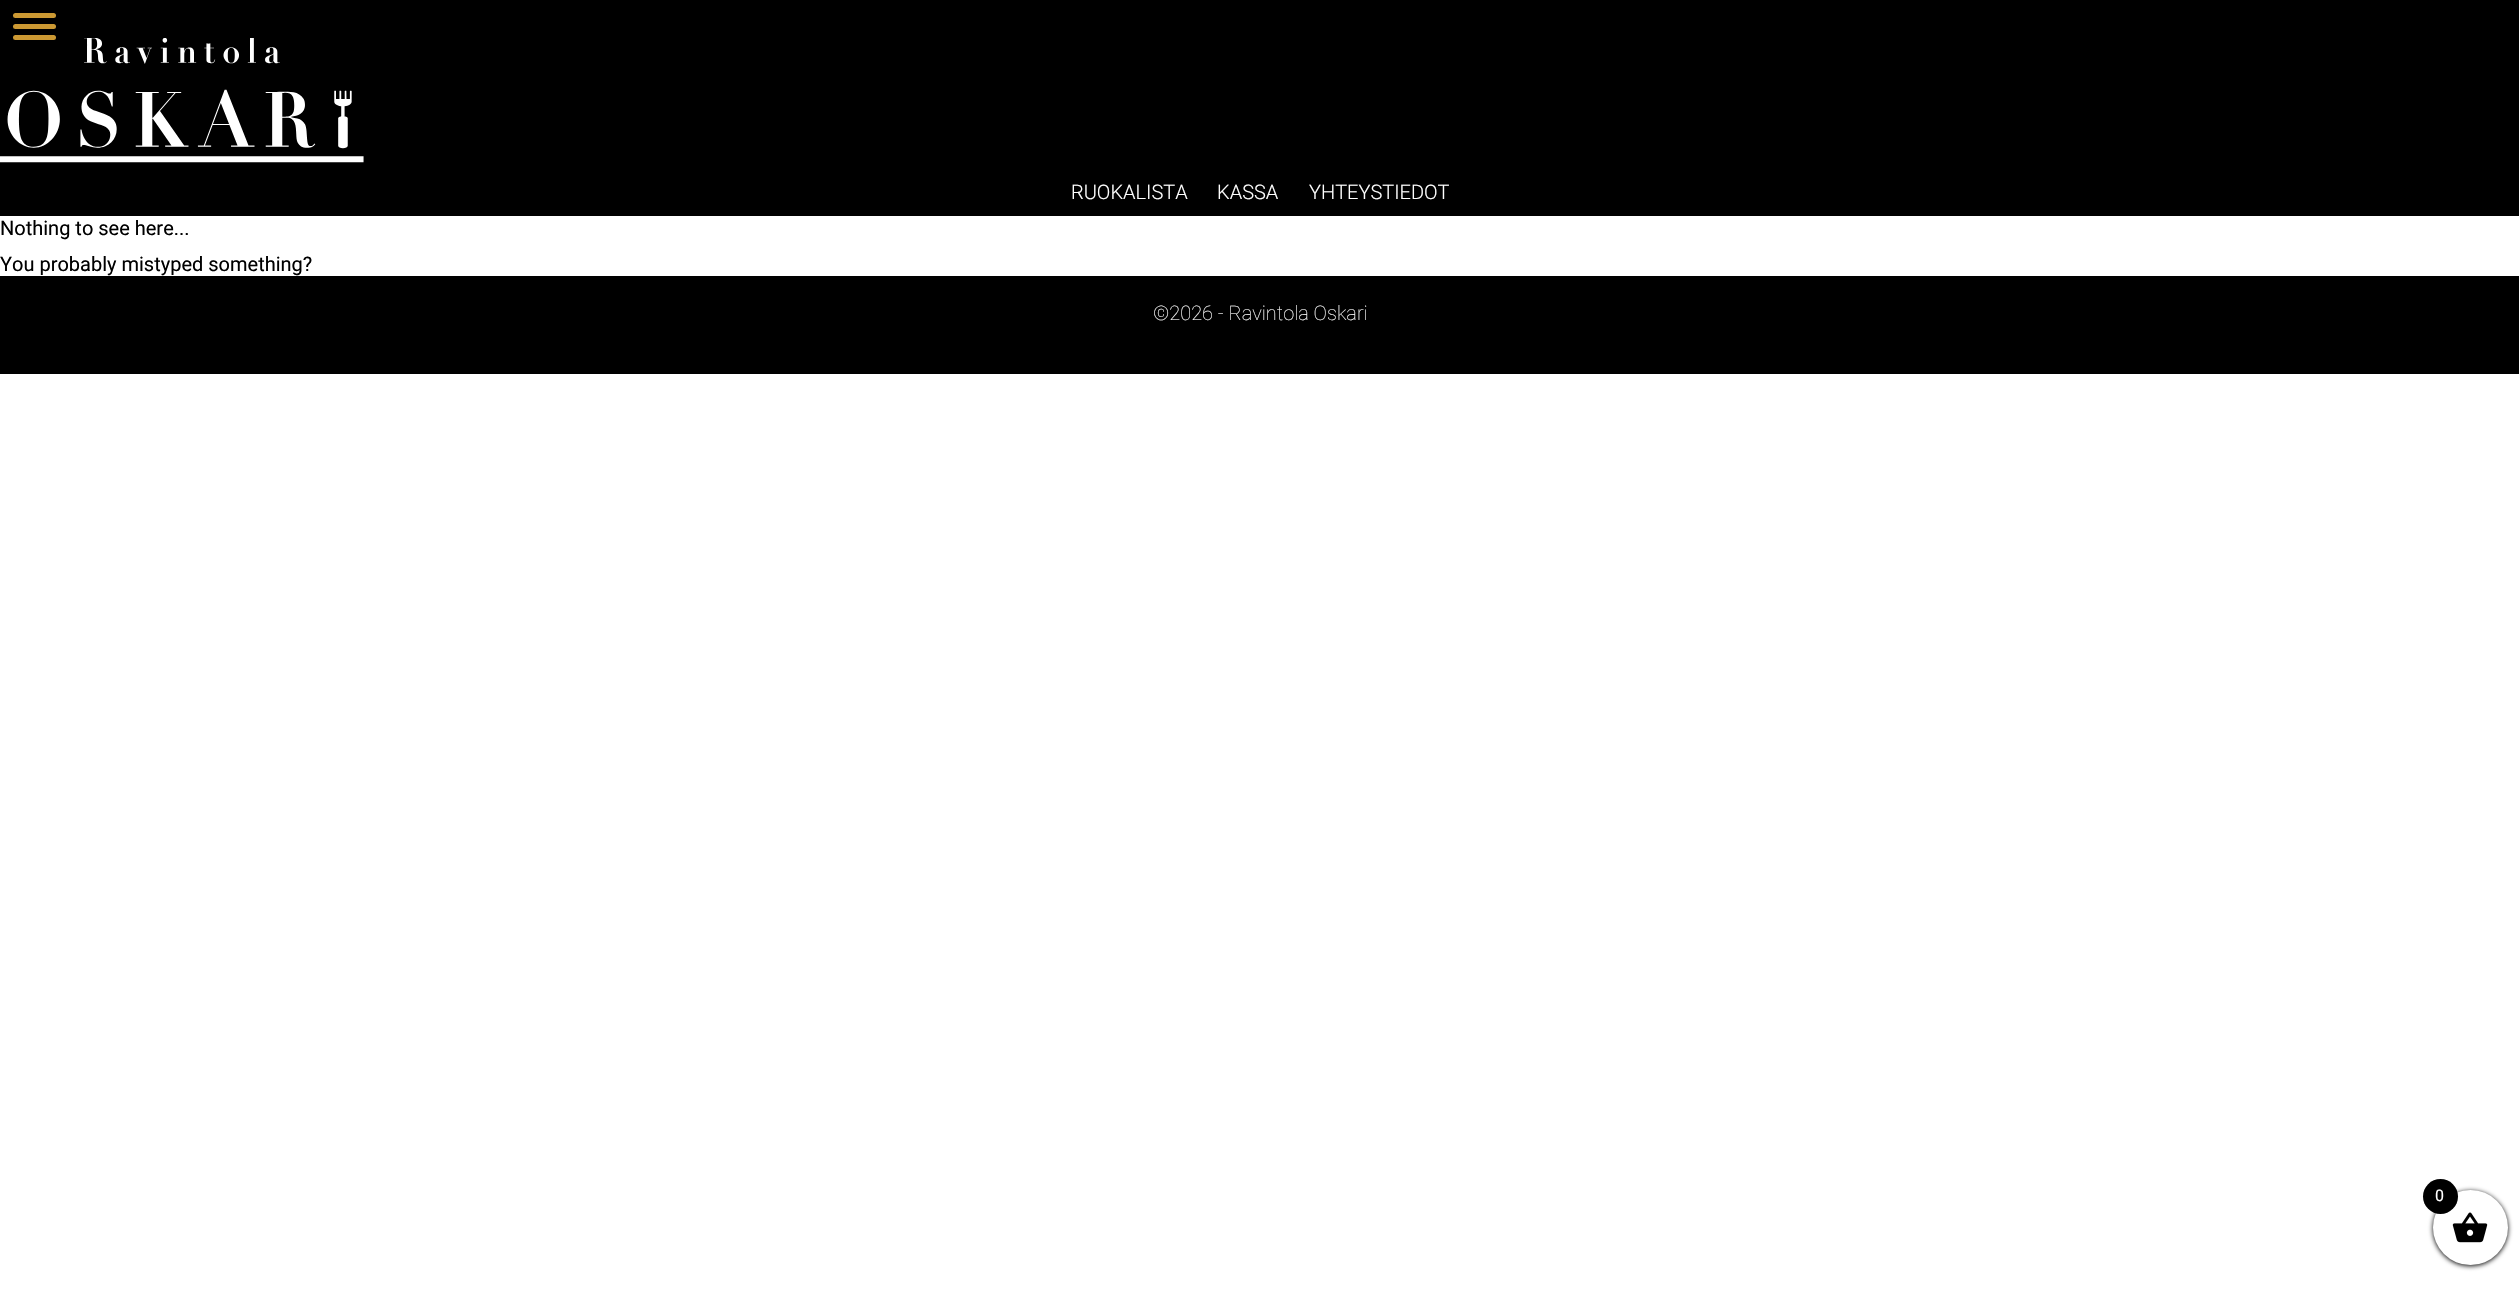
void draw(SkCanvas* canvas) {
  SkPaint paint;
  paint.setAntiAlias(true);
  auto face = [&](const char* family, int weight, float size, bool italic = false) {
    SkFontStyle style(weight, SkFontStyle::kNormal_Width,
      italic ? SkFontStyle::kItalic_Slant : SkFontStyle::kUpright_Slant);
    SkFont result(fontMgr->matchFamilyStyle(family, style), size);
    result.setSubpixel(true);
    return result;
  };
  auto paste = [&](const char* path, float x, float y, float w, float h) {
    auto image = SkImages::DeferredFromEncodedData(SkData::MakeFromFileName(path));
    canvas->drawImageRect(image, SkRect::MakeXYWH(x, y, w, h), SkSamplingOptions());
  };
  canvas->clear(0xffffffff);
  paint.setColor(0xff000000);
  canvas->drawRect(SkRect::MakeXYWH(0, 0, 2519, 216), paint);
  paint.setColor(0xffcc9933);
  canvas->drawRoundRect(SkRect::MakeXYWH(13, 13, 43, 5), 2.5f, 2.5f, paint);
  canvas->drawRoundRect(SkRect::MakeXYWH(13, 24, 43, 5), 2.5f, 2.5f, paint);
  paste("img/1.png", 0, 38, 364, 125);
  canvas->drawRoundRect(SkRect::MakeXYWH(13, 35, 43, 5), 2.5f, 2.5f, paint);
  paint.setColor(0xff000000);
  canvas->drawRect(SkRect::MakeXYWH(0, 276, 2519, 98), paint);
  paint.setMaskFilter(SkMaskFilter::MakeBlur(kNormal_SkBlurStyle, 2.5f));
  canvas->drawRoundRect(SkRect::MakeXYWH(2433, 1191, 75, 75), 37.5f, 37.5f, paint);
  paint.setMaskFilter(nullptr);
  paint.setColor(0xffffffff);
  canvas->drawCircle(2470.5f, 1227.5f, 37.5f, paint);
  paste("img/2.png", 2452, 1212, 36, 31);
  paint.setColor(0xff000000);
  canvas->drawCircle(2440.5f, 1196.5f, 17.5f, paint);
  auto f0 = face("Roboto", 300, 20);
  paint.setColor(0xffffffff);
  {
    const struct { const char* s; float x, y; } items[] = {
      {"RUOKALISTA", 1071, 199},
      {"KASSA", 1217, 199},
      {"YHTEYSTIEDOT", 1309, 199},
    };
    for (auto [s, x, y] : items) {
      canvas->drawString(s, x, y, f0, paint);
    }
  }
  auto f1 = face("Roboto", 400, 20);
  paint.setColor(0xff000000);
  canvas->drawString("Nothing to see here...", 0, 235, f1, paint);
  canvas->drawString("You probably mistyped something?", 0, 271, f1, paint);
  auto f2 = face("Roboto", 100, 20);
  paint.setColor(0xffffffff);
  canvas->drawString("©2026 - Ravintola Oskari", 1153, 320, f2, paint);
  auto f3 = face("Roboto", 400, 16);
  canvas->drawString("0", 2435, 1201, f3, paint);
}
